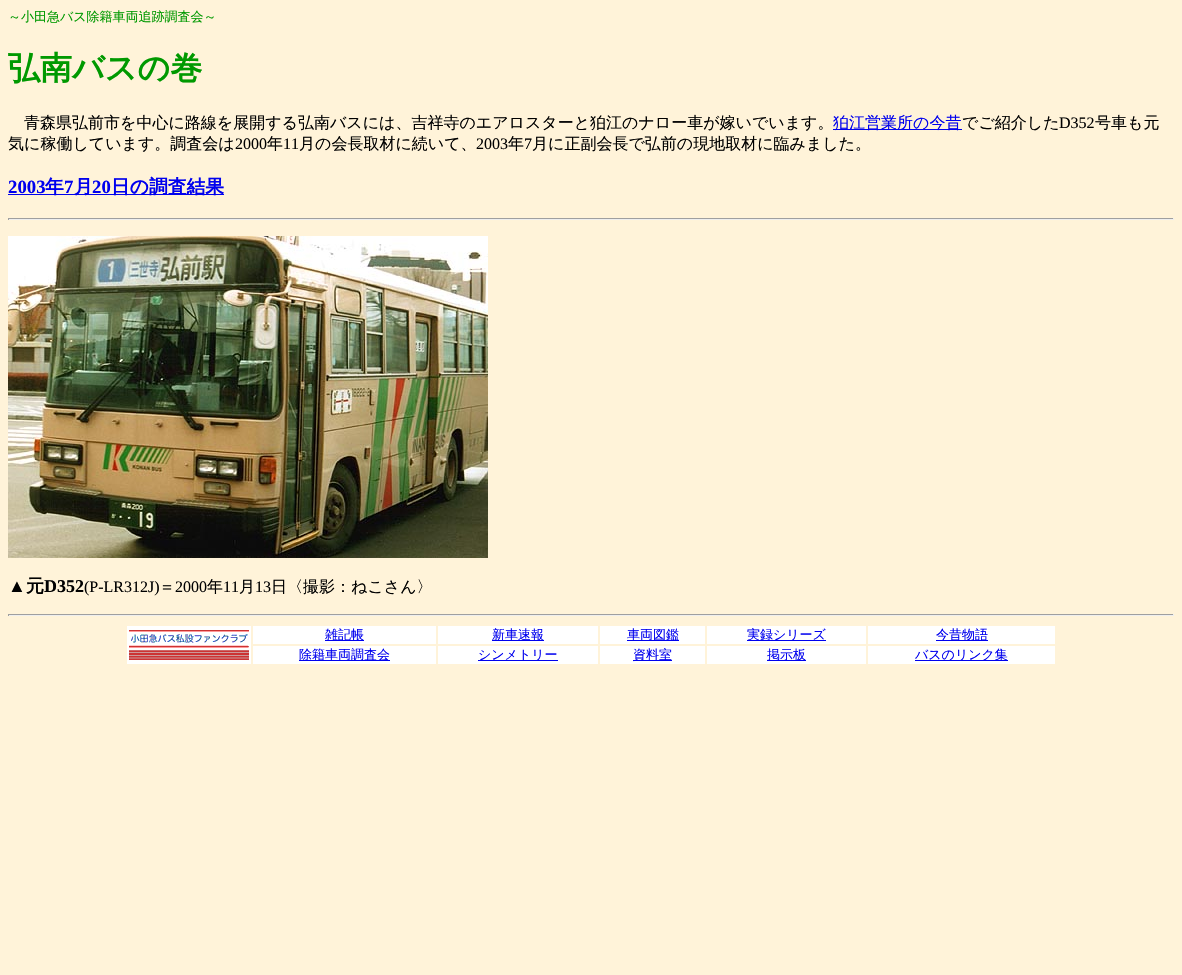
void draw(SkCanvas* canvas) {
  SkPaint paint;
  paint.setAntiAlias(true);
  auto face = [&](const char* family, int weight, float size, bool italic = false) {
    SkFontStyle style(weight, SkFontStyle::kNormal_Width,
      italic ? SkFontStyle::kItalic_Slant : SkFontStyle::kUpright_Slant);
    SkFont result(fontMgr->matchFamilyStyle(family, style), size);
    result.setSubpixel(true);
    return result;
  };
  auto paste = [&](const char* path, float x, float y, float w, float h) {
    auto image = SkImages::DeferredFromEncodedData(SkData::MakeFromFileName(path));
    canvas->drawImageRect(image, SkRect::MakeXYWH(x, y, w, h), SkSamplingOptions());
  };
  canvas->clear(0xfffff3d9);
  {
    const struct { float x, y, w, h; SkColor color; } items[] = {
      {833, 129, 129, 1, 0xff0000ee},
      {8, 194, 216, 1, 0xff0000ee},
      {8, 218, 1166, 1, 0xff9f9f9f},
      {1173, 218, 1, 2, 0xffeeeeee},
      {8, 219, 1166, 1, 0xffeeeeee},
      {8, 218, 1, 2, 0xff9f9f9f},
    };
    for (auto [x, y, w, h, color] : items) {
      paint.setColor(color);
      canvas->drawRect(SkRect::MakeXYWH(x, y, w, h), paint);
    }
  }
  paste("img/1.png", 8, 236, 480, 322);
  {
    const struct { float x, y, w, h; SkColor color; } items[] = {
      {8, 614, 1166, 1, 0xff9f9f9f},
      {1173, 614, 1, 2, 0xffeeeeee},
      {8, 615, 1166, 1, 0xffeeeeee},
      {8, 614, 1, 2, 0xff9f9f9f},
      {127, 626, 124, 38, 0xffffffff},
    };
    for (auto [x, y, w, h, color] : items) {
      paint.setColor(color);
      canvas->drawRect(SkRect::MakeXYWH(x, y, w, h), paint);
    }
  }
  paste("img/2.png", 129, 630, 120, 30);
  {
    const struct { float x, y, w, h; SkColor color; } items[] = {
      {253, 626, 183, 18, 0xffffffff},
      {325, 640, 39, 1, 0xff0000ee},
      {438, 626, 160, 18, 0xffffffff},
      {492, 640, 52, 1, 0xff0000ee},
      {600, 626, 105, 18, 0xffffffff},
      {627, 640, 52, 1, 0xff0000ee},
      {707, 626, 159, 18, 0xffffffff},
      {747, 640, 79, 1, 0xff0000ee},
      {868, 626, 187, 18, 0xffffffff},
      {936, 640, 52, 1, 0xff0000ee},
      {253, 646, 183, 18, 0xffffffff},
      {299, 660, 91, 1, 0xff0000ee},
      {438, 646, 160, 18, 0xffffffff},
      {478, 660, 80, 1, 0xff0000ee},
      {600, 646, 105, 18, 0xffffffff},
      {633, 660, 39, 1, 0xff0000ee},
      {707, 646, 159, 18, 0xffffffff},
      {767, 660, 39, 1, 0xff0000ee},
      {868, 646, 187, 18, 0xffffffff},
      {915, 660, 93, 1, 0xff0000ee},
    };
    for (auto [x, y, w, h, color] : items) {
      paint.setColor(color);
      canvas->drawRect(SkRect::MakeXYWH(x, y, w, h), paint);
    }
  }
  auto f0 = face("WenQuanYi Zen Hei", 500, 13);
  paint.setColor(0xff009900);
  canvas->drawString("～小田急バス除籍車両追跡調査会～", 8, 21, f0, paint);
  auto f1 = face("WenQuanYi Zen Hei", 700, 32);
  canvas->drawString("弘南バスの巻", 8, 79, f1, paint);
  auto f2 = face("WenQuanYi Zen Hei", 500, 16);
  paint.setColor(0xff000000);
  canvas->drawString("青森県弘前市を中心に路線を展開する弘南バスには、吉祥寺のエアロスターと狛江のナロー車が嫁いでいます。", 24, 128, f2, paint);
  paint.setColor(0xff0000ee);
  canvas->drawString("狛江営業所の今昔", 833, 128, f2, paint);
  paint.setColor(0xff000000);
  canvas->drawString("でご紹介した", 962, 128, f2, paint);
  auto f3 = face("Liberation Serif", 400, 16);
  canvas->drawString("D352", 1059, 128, f3, paint);
  canvas->drawString("号車も元", 1095, 128, f2, paint);
  canvas->drawString("気に稼働しています。調査会は", 8, 149, f2, paint);
  canvas->drawString("2000", 235, 149, f3, paint);
  canvas->drawString("年", 267, 149, f2, paint);
  canvas->drawString("11", 283, 149, f3, paint);
  canvas->drawString("月の会長取材に続いて、", 299, 149, f2, paint);
  canvas->drawString("2003", 476, 149, f3, paint);
  canvas->drawString("年", 508, 149, f2, paint);
  canvas->drawString("7", 524, 149, f3, paint);
  canvas->drawString("月に正副会長で弘前の現地取材に臨みました。", 532, 149, f2, paint);
  auto f4 = face("Liberation Serif", 700, 18.75f);
  paint.setColor(0xff0000ee);
  canvas->drawString("2003", 8, 193, f4, paint);
  auto f5 = face("WenQuanYi Zen Hei", 700, 18.75f);
  canvas->drawString("年", 45, 193, f5, paint);
  canvas->drawString("7", 64, 193, f4, paint);
  canvas->drawString("月", 74, 193, f5, paint);
  canvas->drawString("20", 92, 193, f4, paint);
  canvas->drawString("日の調査結果", 111, 193, f5, paint);
  auto f6 = face("Liberation Serif", 700, 18);
  paint.setColor(0xff000000);
  canvas->drawString("▲", 8, 592, f6, paint);
  auto f7 = face("WenQuanYi Zen Hei", 700, 18);
  canvas->drawString("元", 26, 592, f7, paint);
  canvas->drawString("D352", 44, 592, f6, paint);
  canvas->drawString("(P-LR312J)", 84, 592, f3, paint);
  canvas->drawString("＝", 159, 592, f2, paint);
  canvas->drawString("2000", 175, 592, f3, paint);
  canvas->drawString("年", 207, 592, f2, paint);
  canvas->drawString("11", 223, 592, f3, paint);
  canvas->drawString("月", 239, 592, f2, paint);
  canvas->drawString("13", 255, 592, f3, paint);
  canvas->drawString("日〈撮影：ねこさん〉", 271, 592, f2, paint);
  paint.setColor(0xff0000ee);
  {
    const struct { const char* s; float x, y; } items[] = {
      {"雑記帳", 325, 639},
      {"新車速報", 492, 639},
      {"車両図鑑", 627, 639},
      {"実録シリーズ", 747, 639},
      {"今昔物語", 936, 639},
      {"除籍車両調査会", 299, 659},
      {"シンメトリー", 478, 659},
      {"資料室", 633, 659},
      {"掲示板", 767, 659},
      {"バスのリンク集", 915, 659},
    };
    for (auto [s, x, y] : items) {
      canvas->drawString(s, x, y, f0, paint);
    }
  }
}
